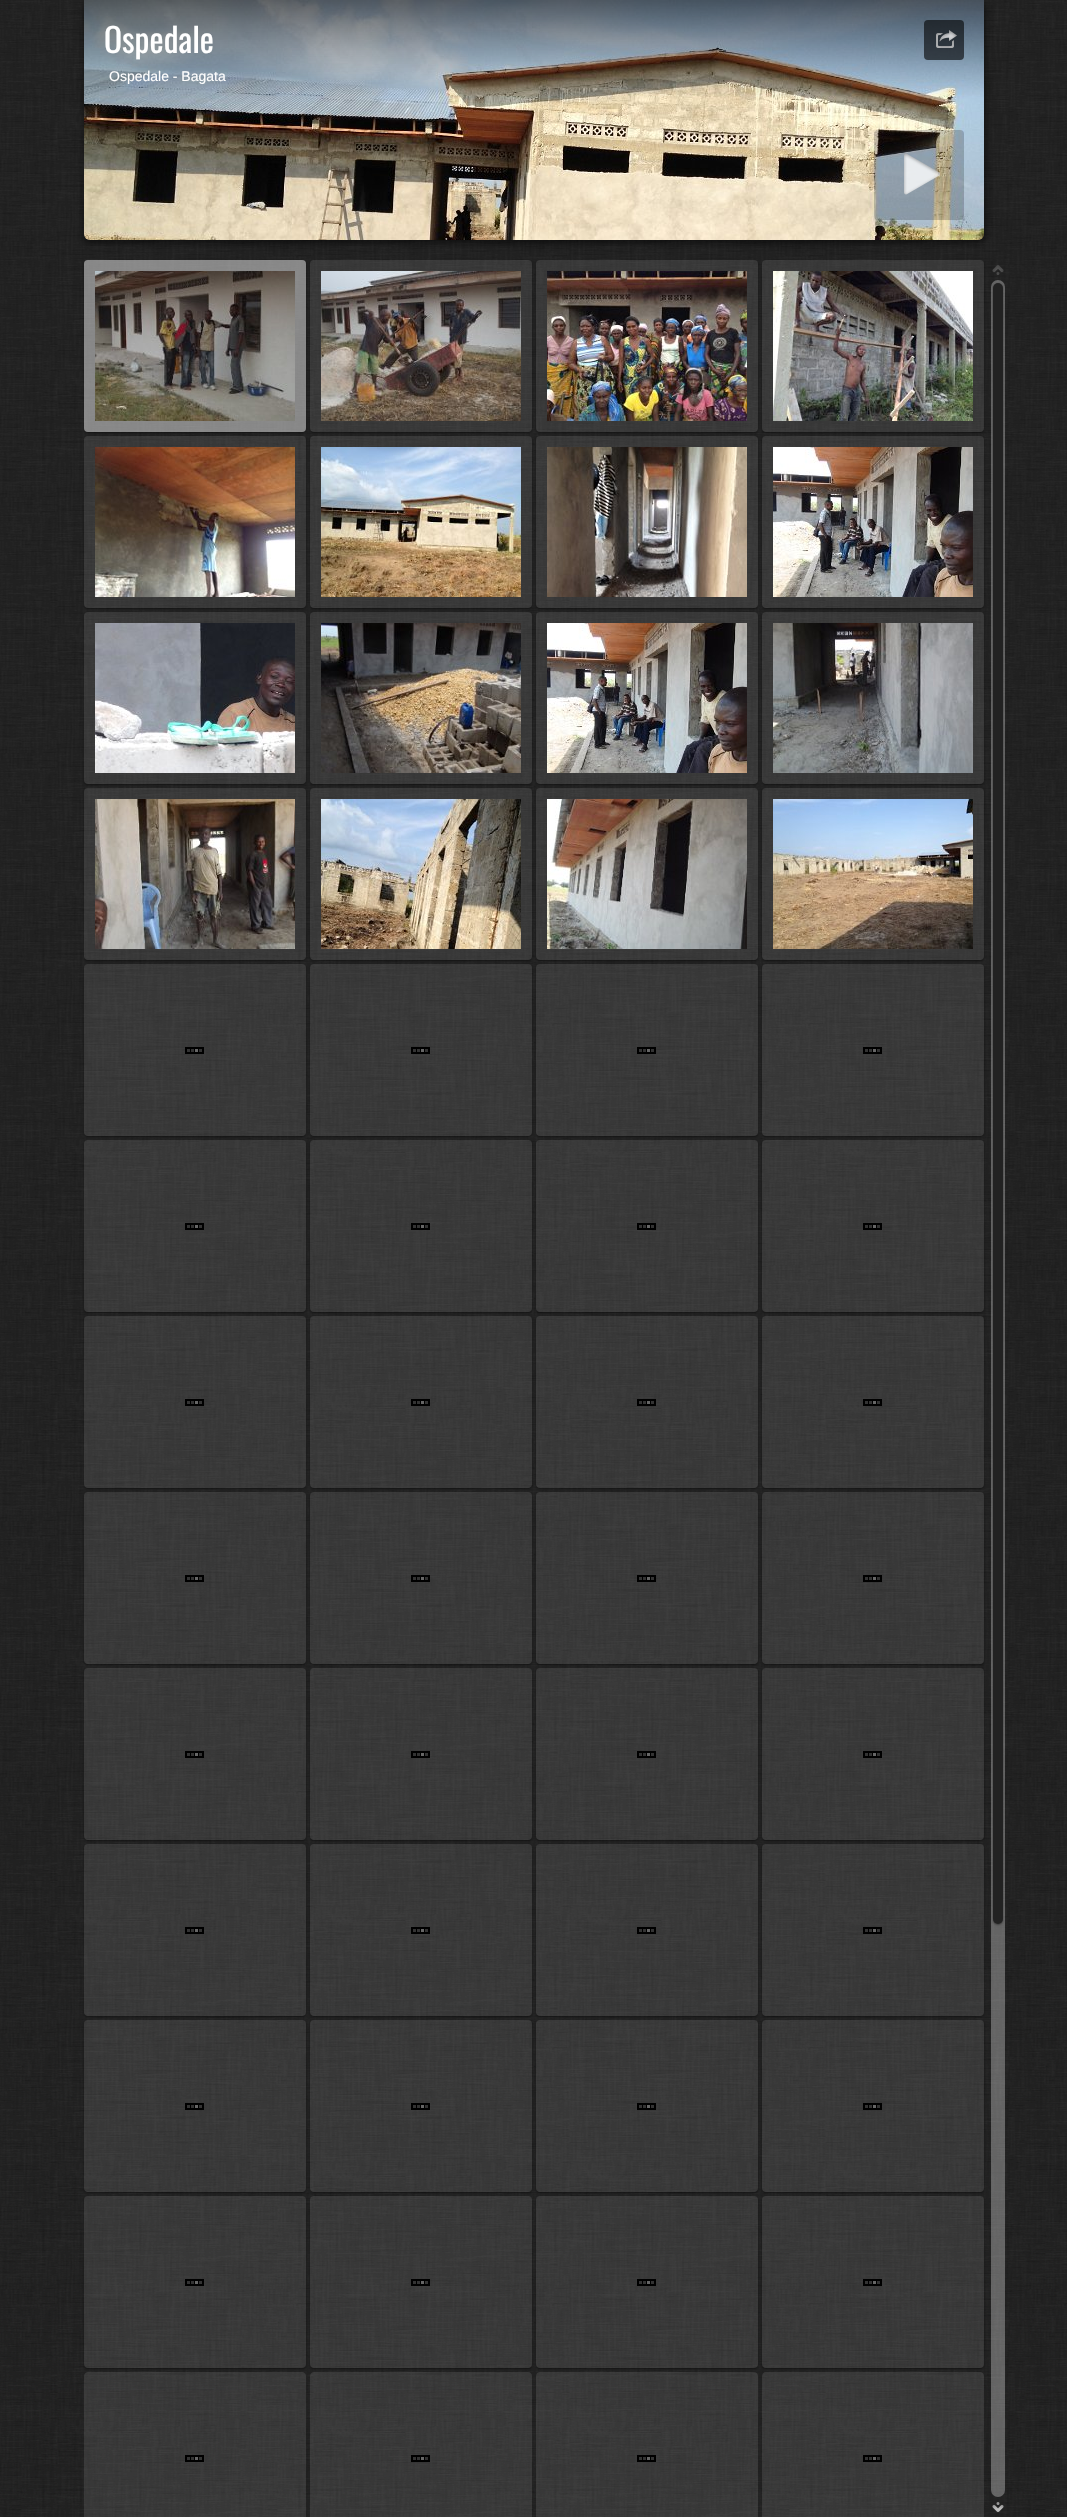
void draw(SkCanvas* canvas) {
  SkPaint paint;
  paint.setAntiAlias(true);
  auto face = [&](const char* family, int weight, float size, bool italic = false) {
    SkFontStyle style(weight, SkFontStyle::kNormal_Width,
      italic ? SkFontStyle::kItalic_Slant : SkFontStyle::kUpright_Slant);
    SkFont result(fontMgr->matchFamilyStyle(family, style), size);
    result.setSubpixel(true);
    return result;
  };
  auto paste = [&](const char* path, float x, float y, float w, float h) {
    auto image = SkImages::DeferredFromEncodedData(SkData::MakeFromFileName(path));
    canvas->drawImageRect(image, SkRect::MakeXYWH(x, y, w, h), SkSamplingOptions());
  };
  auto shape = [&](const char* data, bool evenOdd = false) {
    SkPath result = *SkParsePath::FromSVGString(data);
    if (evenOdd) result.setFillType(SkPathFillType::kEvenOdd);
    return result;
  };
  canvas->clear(0xff222222);
  paste("img/1.png", 0, 0, 1067, 2517);
  paint.setColor(0x99000000);
  paint.setMaskFilter(SkMaskFilter::MakeBlur(kNormal_SkBlurStyle, 4));
  canvas->drawRoundRect(SkRect::MakeXYWH(85, 3, 900, 240), 6, 6, paint);
  paint.setMaskFilter(nullptr);
  paste("img/2.png", 84, 0, 900, 240);
  canvas->drawRoundRect(SkRect::MakeXYWH(924, 20, 40, 40), 4, 4, paint);
  paste("img/3.png", 936, 30, 21, 18);
  paint.setColor(0x33000000);
  canvas->drawRoundRect(SkRect::MakeXYWH(874, 130, 90, 90), 4, 4, paint);
  paste("img/4.png", 904, 153, 36, 42);
  canvas->save();
  canvas->clipPath(shape("M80 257H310V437H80ZM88 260H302C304 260 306 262 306 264V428C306 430 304 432 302 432H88C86 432 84 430 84 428V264C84 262 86 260 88 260Z", true), true);
  paint.setColor(0x66000000);
  paint.setMaskFilter(SkMaskFilter::MakeBlur(kNormal_SkBlurStyle, 1));
  canvas->drawRoundRect(SkRect::MakeXYWH(84, 261, 222, 172), 4, 4, paint);
  paint.setMaskFilter(nullptr);
  canvas->restore();
  paint.setColor(0x1affffff);
  canvas->drawRoundRect(SkRect::MakeXYWH(84, 260, 222, 172), 4, 4, paint);
  paint.setColor(0x66ffffff);
  canvas->drawRoundRect(SkRect::MakeXYWH(84, 260, 222, 172), 4, 4, paint);
  paste("img/5.png", 95, 271, 200, 150);
  canvas->save();
  canvas->clipPath(shape("M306 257H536V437H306ZM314 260H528C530 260 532 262 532 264V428C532 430 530 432 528 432H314C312 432 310 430 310 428V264C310 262 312 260 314 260Z", true), true);
  paint.setColor(0x66000000);
  paint.setMaskFilter(SkMaskFilter::MakeBlur(kNormal_SkBlurStyle, 1));
  canvas->drawRoundRect(SkRect::MakeXYWH(310, 261, 222, 172), 4, 4, paint);
  paint.setMaskFilter(nullptr);
  canvas->restore();
  paint.setColor(0x1affffff);
  canvas->drawRoundRect(SkRect::MakeXYWH(310, 260, 222, 172), 4, 4, paint);
  paste("img/6.png", 321, 271, 200, 150);
  canvas->save();
  canvas->clipPath(shape("M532 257H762V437H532ZM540 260H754C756 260 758 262 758 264V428C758 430 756 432 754 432H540C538 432 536 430 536 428V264C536 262 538 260 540 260Z", true), true);
  paint.setColor(0x66000000);
  paint.setMaskFilter(SkMaskFilter::MakeBlur(kNormal_SkBlurStyle, 1));
  canvas->drawRoundRect(SkRect::MakeXYWH(536, 261, 222, 172), 4, 4, paint);
  paint.setMaskFilter(nullptr);
  canvas->restore();
  paint.setColor(0x1affffff);
  canvas->drawRoundRect(SkRect::MakeXYWH(536, 260, 222, 172), 4, 4, paint);
  paste("img/7.png", 547, 271, 200, 150);
  canvas->save();
  canvas->clipPath(shape("M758 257H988V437H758ZM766 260H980C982 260 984 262 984 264V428C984 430 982 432 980 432H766C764 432 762 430 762 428V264C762 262 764 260 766 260Z", true), true);
  paint.setColor(0x66000000);
  paint.setMaskFilter(SkMaskFilter::MakeBlur(kNormal_SkBlurStyle, 1));
  canvas->drawRoundRect(SkRect::MakeXYWH(762, 261, 222, 172), 4, 4, paint);
  paint.setMaskFilter(nullptr);
  canvas->restore();
  paint.setColor(0x1affffff);
  canvas->drawRoundRect(SkRect::MakeXYWH(762, 260, 222, 172), 4, 4, paint);
  paste("img/8.png", 773, 271, 200, 150);
  canvas->save();
  canvas->clipPath(shape("M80 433H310V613H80ZM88 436H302C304 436 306 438 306 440V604C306 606 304 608 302 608H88C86 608 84 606 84 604V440C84 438 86 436 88 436Z", true), true);
  paint.setColor(0x66000000);
  paint.setMaskFilter(SkMaskFilter::MakeBlur(kNormal_SkBlurStyle, 1));
  canvas->drawRoundRect(SkRect::MakeXYWH(84, 437, 222, 172), 4, 4, paint);
  paint.setMaskFilter(nullptr);
  canvas->restore();
  paint.setColor(0x1affffff);
  canvas->drawRoundRect(SkRect::MakeXYWH(84, 436, 222, 172), 4, 4, paint);
  paste("img/9.png", 95, 447, 200, 150);
  canvas->save();
  canvas->clipPath(shape("M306 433H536V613H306ZM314 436H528C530 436 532 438 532 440V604C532 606 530 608 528 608H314C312 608 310 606 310 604V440C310 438 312 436 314 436Z", true), true);
  paint.setColor(0x66000000);
  paint.setMaskFilter(SkMaskFilter::MakeBlur(kNormal_SkBlurStyle, 1));
  canvas->drawRoundRect(SkRect::MakeXYWH(310, 437, 222, 172), 4, 4, paint);
  paint.setMaskFilter(nullptr);
  canvas->restore();
  paint.setColor(0x1affffff);
  canvas->drawRoundRect(SkRect::MakeXYWH(310, 436, 222, 172), 4, 4, paint);
  paste("img/10.png", 321, 447, 200, 150);
  canvas->save();
  canvas->clipPath(shape("M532 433H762V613H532ZM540 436H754C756 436 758 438 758 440V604C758 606 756 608 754 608H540C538 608 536 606 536 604V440C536 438 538 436 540 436Z", true), true);
  paint.setColor(0x66000000);
  paint.setMaskFilter(SkMaskFilter::MakeBlur(kNormal_SkBlurStyle, 1));
  canvas->drawRoundRect(SkRect::MakeXYWH(536, 437, 222, 172), 4, 4, paint);
  paint.setMaskFilter(nullptr);
  canvas->restore();
  paint.setColor(0x1affffff);
  canvas->drawRoundRect(SkRect::MakeXYWH(536, 436, 222, 172), 4, 4, paint);
  paste("img/11.png", 547, 447, 200, 150);
  canvas->save();
  canvas->clipPath(shape("M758 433H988V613H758ZM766 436H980C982 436 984 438 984 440V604C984 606 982 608 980 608H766C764 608 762 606 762 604V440C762 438 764 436 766 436Z", true), true);
  paint.setColor(0x66000000);
  paint.setMaskFilter(SkMaskFilter::MakeBlur(kNormal_SkBlurStyle, 1));
  canvas->drawRoundRect(SkRect::MakeXYWH(762, 437, 222, 172), 4, 4, paint);
  paint.setMaskFilter(nullptr);
  canvas->restore();
  paint.setColor(0x1affffff);
  canvas->drawRoundRect(SkRect::MakeXYWH(762, 436, 222, 172), 4, 4, paint);
  paste("img/12.png", 773, 447, 200, 150);
  canvas->save();
  canvas->clipPath(shape("M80 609H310V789H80ZM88 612H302C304 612 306 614 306 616V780C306 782 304 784 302 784H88C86 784 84 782 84 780V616C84 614 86 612 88 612Z", true), true);
  paint.setColor(0x66000000);
  paint.setMaskFilter(SkMaskFilter::MakeBlur(kNormal_SkBlurStyle, 1));
  canvas->drawRoundRect(SkRect::MakeXYWH(84, 613, 222, 172), 4, 4, paint);
  paint.setMaskFilter(nullptr);
  canvas->restore();
  paint.setColor(0x1affffff);
  canvas->drawRoundRect(SkRect::MakeXYWH(84, 612, 222, 172), 4, 4, paint);
  paste("img/13.png", 95, 623, 200, 150);
  canvas->save();
  canvas->clipPath(shape("M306 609H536V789H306ZM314 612H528C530 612 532 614 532 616V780C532 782 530 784 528 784H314C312 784 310 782 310 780V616C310 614 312 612 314 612Z", true), true);
  paint.setColor(0x66000000);
  paint.setMaskFilter(SkMaskFilter::MakeBlur(kNormal_SkBlurStyle, 1));
  canvas->drawRoundRect(SkRect::MakeXYWH(310, 613, 222, 172), 4, 4, paint);
  paint.setMaskFilter(nullptr);
  canvas->restore();
  paint.setColor(0x1affffff);
  canvas->drawRoundRect(SkRect::MakeXYWH(310, 612, 222, 172), 4, 4, paint);
  paste("img/14.png", 321, 623, 200, 150);
  canvas->save();
  canvas->clipPath(shape("M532 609H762V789H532ZM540 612H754C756 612 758 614 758 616V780C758 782 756 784 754 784H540C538 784 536 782 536 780V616C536 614 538 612 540 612Z", true), true);
  paint.setColor(0x66000000);
  paint.setMaskFilter(SkMaskFilter::MakeBlur(kNormal_SkBlurStyle, 1));
  canvas->drawRoundRect(SkRect::MakeXYWH(536, 613, 222, 172), 4, 4, paint);
  paint.setMaskFilter(nullptr);
  canvas->restore();
  paint.setColor(0x1affffff);
  canvas->drawRoundRect(SkRect::MakeXYWH(536, 612, 222, 172), 4, 4, paint);
  paste("img/12.png", 547, 623, 200, 150);
  canvas->save();
  canvas->clipPath(shape("M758 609H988V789H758ZM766 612H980C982 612 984 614 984 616V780C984 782 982 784 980 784H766C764 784 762 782 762 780V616C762 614 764 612 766 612Z", true), true);
  paint.setColor(0x66000000);
  paint.setMaskFilter(SkMaskFilter::MakeBlur(kNormal_SkBlurStyle, 1));
  canvas->drawRoundRect(SkRect::MakeXYWH(762, 613, 222, 172), 4, 4, paint);
  paint.setMaskFilter(nullptr);
  canvas->restore();
  paint.setColor(0x1affffff);
  canvas->drawRoundRect(SkRect::MakeXYWH(762, 612, 222, 172), 4, 4, paint);
  paste("img/15.png", 773, 623, 200, 150);
  canvas->save();
  canvas->clipPath(shape("M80 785H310V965H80ZM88 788H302C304 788 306 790 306 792V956C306 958 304 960 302 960H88C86 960 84 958 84 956V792C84 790 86 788 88 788Z", true), true);
  paint.setColor(0x66000000);
  paint.setMaskFilter(SkMaskFilter::MakeBlur(kNormal_SkBlurStyle, 1));
  canvas->drawRoundRect(SkRect::MakeXYWH(84, 789, 222, 172), 4, 4, paint);
  paint.setMaskFilter(nullptr);
  canvas->restore();
  paint.setColor(0x1affffff);
  canvas->drawRoundRect(SkRect::MakeXYWH(84, 788, 222, 172), 4, 4, paint);
  paste("img/16.png", 95, 799, 200, 150);
  canvas->save();
  canvas->clipPath(shape("M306 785H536V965H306ZM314 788H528C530 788 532 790 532 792V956C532 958 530 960 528 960H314C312 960 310 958 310 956V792C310 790 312 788 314 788Z", true), true);
  paint.setColor(0x66000000);
  paint.setMaskFilter(SkMaskFilter::MakeBlur(kNormal_SkBlurStyle, 1));
  canvas->drawRoundRect(SkRect::MakeXYWH(310, 789, 222, 172), 4, 4, paint);
  paint.setMaskFilter(nullptr);
  canvas->restore();
  paint.setColor(0x1affffff);
  canvas->drawRoundRect(SkRect::MakeXYWH(310, 788, 222, 172), 4, 4, paint);
  paste("img/17.png", 321, 799, 200, 150);
  canvas->save();
  canvas->clipPath(shape("M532 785H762V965H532ZM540 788H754C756 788 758 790 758 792V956C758 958 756 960 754 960H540C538 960 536 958 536 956V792C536 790 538 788 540 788Z", true), true);
  paint.setColor(0x66000000);
  paint.setMaskFilter(SkMaskFilter::MakeBlur(kNormal_SkBlurStyle, 1));
  canvas->drawRoundRect(SkRect::MakeXYWH(536, 789, 222, 172), 4, 4, paint);
  paint.setMaskFilter(nullptr);
  canvas->restore();
  paint.setColor(0x1affffff);
  canvas->drawRoundRect(SkRect::MakeXYWH(536, 788, 222, 172), 4, 4, paint);
  paste("img/18.png", 547, 799, 200, 150);
  canvas->save();
  canvas->clipPath(shape("M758 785H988V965H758ZM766 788H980C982 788 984 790 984 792V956C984 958 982 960 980 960H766C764 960 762 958 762 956V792C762 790 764 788 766 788Z", true), true);
  paint.setColor(0x66000000);
  paint.setMaskFilter(SkMaskFilter::MakeBlur(kNormal_SkBlurStyle, 1));
  canvas->drawRoundRect(SkRect::MakeXYWH(762, 789, 222, 172), 4, 4, paint);
  paint.setMaskFilter(nullptr);
  canvas->restore();
  paint.setColor(0x1affffff);
  canvas->drawRoundRect(SkRect::MakeXYWH(762, 788, 222, 172), 4, 4, paint);
  paste("img/19.png", 773, 799, 200, 150);
  canvas->save();
  canvas->clipPath(shape("M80 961H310V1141H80ZM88 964H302C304 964 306 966 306 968V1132C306 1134 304 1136 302 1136H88C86 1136 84 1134 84 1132V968C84 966 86 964 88 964Z", true), true);
  paint.setColor(0x66000000);
  paint.setMaskFilter(SkMaskFilter::MakeBlur(kNormal_SkBlurStyle, 1));
  canvas->drawRoundRect(SkRect::MakeXYWH(84, 965, 222, 172), 4, 4, paint);
  paint.setMaskFilter(nullptr);
  canvas->restore();
  paint.setColor(0x1affffff);
  canvas->drawRoundRect(SkRect::MakeXYWH(84, 964, 222, 172), 4, 4, paint);
  paste("img/20.png", 185, 1047, 19, 7);
  canvas->save();
  canvas->clipPath(shape("M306 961H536V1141H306ZM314 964H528C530 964 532 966 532 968V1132C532 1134 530 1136 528 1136H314C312 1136 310 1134 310 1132V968C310 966 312 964 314 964Z", true), true);
  paint.setColor(0x66000000);
  paint.setMaskFilter(SkMaskFilter::MakeBlur(kNormal_SkBlurStyle, 1));
  canvas->drawRoundRect(SkRect::MakeXYWH(310, 965, 222, 172), 4, 4, paint);
  paint.setMaskFilter(nullptr);
  canvas->restore();
  paint.setColor(0x1affffff);
  canvas->drawRoundRect(SkRect::MakeXYWH(310, 964, 222, 172), 4, 4, paint);
  paste("img/20.png", 411, 1047, 19, 7);
  canvas->save();
  canvas->clipPath(shape("M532 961H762V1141H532ZM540 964H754C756 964 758 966 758 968V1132C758 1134 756 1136 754 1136H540C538 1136 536 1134 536 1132V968C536 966 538 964 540 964Z", true), true);
  paint.setColor(0x66000000);
  paint.setMaskFilter(SkMaskFilter::MakeBlur(kNormal_SkBlurStyle, 1));
  canvas->drawRoundRect(SkRect::MakeXYWH(536, 965, 222, 172), 4, 4, paint);
  paint.setMaskFilter(nullptr);
  canvas->restore();
  paint.setColor(0x1affffff);
  canvas->drawRoundRect(SkRect::MakeXYWH(536, 964, 222, 172), 4, 4, paint);
  paste("img/20.png", 637, 1047, 19, 7);
  canvas->save();
  canvas->clipPath(shape("M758 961H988V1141H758ZM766 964H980C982 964 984 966 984 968V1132C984 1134 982 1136 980 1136H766C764 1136 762 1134 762 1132V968C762 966 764 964 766 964Z", true), true);
  paint.setColor(0x66000000);
  paint.setMaskFilter(SkMaskFilter::MakeBlur(kNormal_SkBlurStyle, 1));
  canvas->drawRoundRect(SkRect::MakeXYWH(762, 965, 222, 172), 4, 4, paint);
  paint.setMaskFilter(nullptr);
  canvas->restore();
  paint.setColor(0x1affffff);
  canvas->drawRoundRect(SkRect::MakeXYWH(762, 964, 222, 172), 4, 4, paint);
  paste("img/20.png", 863, 1047, 19, 7);
  canvas->save();
  canvas->clipPath(shape("M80 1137H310V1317H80ZM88 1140H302C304 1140 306 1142 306 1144V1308C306 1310 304 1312 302 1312H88C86 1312 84 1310 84 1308V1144C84 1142 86 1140 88 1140Z", true), true);
  paint.setColor(0x66000000);
  paint.setMaskFilter(SkMaskFilter::MakeBlur(kNormal_SkBlurStyle, 1));
  canvas->drawRoundRect(SkRect::MakeXYWH(84, 1141, 222, 172), 4, 4, paint);
  paint.setMaskFilter(nullptr);
  canvas->restore();
  paint.setColor(0x1affffff);
  canvas->drawRoundRect(SkRect::MakeXYWH(84, 1140, 222, 172), 4, 4, paint);
  paste("img/20.png", 185, 1223, 19, 7);
  canvas->save();
  canvas->clipPath(shape("M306 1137H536V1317H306ZM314 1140H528C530 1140 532 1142 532 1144V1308C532 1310 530 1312 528 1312H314C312 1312 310 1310 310 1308V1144C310 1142 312 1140 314 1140Z", true), true);
  paint.setColor(0x66000000);
  paint.setMaskFilter(SkMaskFilter::MakeBlur(kNormal_SkBlurStyle, 1));
  canvas->drawRoundRect(SkRect::MakeXYWH(310, 1141, 222, 172), 4, 4, paint);
  paint.setMaskFilter(nullptr);
  canvas->restore();
  paint.setColor(0x1affffff);
  canvas->drawRoundRect(SkRect::MakeXYWH(310, 1140, 222, 172), 4, 4, paint);
  paste("img/20.png", 411, 1223, 19, 7);
  canvas->save();
  canvas->clipPath(shape("M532 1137H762V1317H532ZM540 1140H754C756 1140 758 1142 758 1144V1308C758 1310 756 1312 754 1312H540C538 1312 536 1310 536 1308V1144C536 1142 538 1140 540 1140Z", true), true);
  paint.setColor(0x66000000);
  paint.setMaskFilter(SkMaskFilter::MakeBlur(kNormal_SkBlurStyle, 1));
  canvas->drawRoundRect(SkRect::MakeXYWH(536, 1141, 222, 172), 4, 4, paint);
  paint.setMaskFilter(nullptr);
  canvas->restore();
  paint.setColor(0x1affffff);
  canvas->drawRoundRect(SkRect::MakeXYWH(536, 1140, 222, 172), 4, 4, paint);
  paste("img/20.png", 637, 1223, 19, 7);
  canvas->save();
  canvas->clipPath(shape("M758 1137H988V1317H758ZM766 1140H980C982 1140 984 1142 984 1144V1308C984 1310 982 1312 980 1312H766C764 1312 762 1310 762 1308V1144C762 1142 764 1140 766 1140Z", true), true);
  paint.setColor(0x66000000);
  paint.setMaskFilter(SkMaskFilter::MakeBlur(kNormal_SkBlurStyle, 1));
  canvas->drawRoundRect(SkRect::MakeXYWH(762, 1141, 222, 172), 4, 4, paint);
  paint.setMaskFilter(nullptr);
  canvas->restore();
  paint.setColor(0x1affffff);
  canvas->drawRoundRect(SkRect::MakeXYWH(762, 1140, 222, 172), 4, 4, paint);
  paste("img/20.png", 863, 1223, 19, 7);
  canvas->save();
  canvas->clipPath(shape("M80 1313H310V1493H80ZM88 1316H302C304 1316 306 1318 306 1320V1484C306 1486 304 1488 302 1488H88C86 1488 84 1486 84 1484V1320C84 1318 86 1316 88 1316Z", true), true);
  paint.setColor(0x66000000);
  paint.setMaskFilter(SkMaskFilter::MakeBlur(kNormal_SkBlurStyle, 1));
  canvas->drawRoundRect(SkRect::MakeXYWH(84, 1317, 222, 172), 4, 4, paint);
  paint.setMaskFilter(nullptr);
  canvas->restore();
  paint.setColor(0x1affffff);
  canvas->drawRoundRect(SkRect::MakeXYWH(84, 1316, 222, 172), 4, 4, paint);
  paste("img/20.png", 185, 1399, 19, 7);
  canvas->save();
  canvas->clipPath(shape("M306 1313H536V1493H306ZM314 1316H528C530 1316 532 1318 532 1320V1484C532 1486 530 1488 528 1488H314C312 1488 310 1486 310 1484V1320C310 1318 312 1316 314 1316Z", true), true);
  paint.setColor(0x66000000);
  paint.setMaskFilter(SkMaskFilter::MakeBlur(kNormal_SkBlurStyle, 1));
  canvas->drawRoundRect(SkRect::MakeXYWH(310, 1317, 222, 172), 4, 4, paint);
  paint.setMaskFilter(nullptr);
  canvas->restore();
  paint.setColor(0x1affffff);
  canvas->drawRoundRect(SkRect::MakeXYWH(310, 1316, 222, 172), 4, 4, paint);
  paste("img/20.png", 411, 1399, 19, 7);
  canvas->save();
  canvas->clipPath(shape("M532 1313H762V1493H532ZM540 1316H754C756 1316 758 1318 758 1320V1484C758 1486 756 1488 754 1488H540C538 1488 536 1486 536 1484V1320C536 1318 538 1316 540 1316Z", true), true);
  paint.setColor(0x66000000);
  paint.setMaskFilter(SkMaskFilter::MakeBlur(kNormal_SkBlurStyle, 1));
  canvas->drawRoundRect(SkRect::MakeXYWH(536, 1317, 222, 172), 4, 4, paint);
  paint.setMaskFilter(nullptr);
  canvas->restore();
  paint.setColor(0x1affffff);
  canvas->drawRoundRect(SkRect::MakeXYWH(536, 1316, 222, 172), 4, 4, paint);
  paste("img/20.png", 637, 1399, 19, 7);
  canvas->save();
  canvas->clipPath(shape("M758 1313H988V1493H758ZM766 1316H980C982 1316 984 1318 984 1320V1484C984 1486 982 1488 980 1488H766C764 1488 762 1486 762 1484V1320C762 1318 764 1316 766 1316Z", true), true);
  paint.setColor(0x66000000);
  paint.setMaskFilter(SkMaskFilter::MakeBlur(kNormal_SkBlurStyle, 1));
  canvas->drawRoundRect(SkRect::MakeXYWH(762, 1317, 222, 172), 4, 4, paint);
  paint.setMaskFilter(nullptr);
  canvas->restore();
  paint.setColor(0x1affffff);
  canvas->drawRoundRect(SkRect::MakeXYWH(762, 1316, 222, 172), 4, 4, paint);
  paste("img/20.png", 863, 1399, 19, 7);
  canvas->save();
  canvas->clipPath(shape("M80 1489H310V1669H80ZM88 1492H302C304 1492 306 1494 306 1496V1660C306 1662 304 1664 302 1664H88C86 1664 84 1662 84 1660V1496C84 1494 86 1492 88 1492Z", true), true);
  paint.setColor(0x66000000);
  paint.setMaskFilter(SkMaskFilter::MakeBlur(kNormal_SkBlurStyle, 1));
  canvas->drawRoundRect(SkRect::MakeXYWH(84, 1493, 222, 172), 4, 4, paint);
  paint.setMaskFilter(nullptr);
  canvas->restore();
  paint.setColor(0x1affffff);
  canvas->drawRoundRect(SkRect::MakeXYWH(84, 1492, 222, 172), 4, 4, paint);
  paste("img/20.png", 185, 1575, 19, 7);
  canvas->save();
  canvas->clipPath(shape("M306 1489H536V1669H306ZM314 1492H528C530 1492 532 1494 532 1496V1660C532 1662 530 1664 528 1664H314C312 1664 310 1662 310 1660V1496C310 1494 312 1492 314 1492Z", true), true);
  paint.setColor(0x66000000);
  paint.setMaskFilter(SkMaskFilter::MakeBlur(kNormal_SkBlurStyle, 1));
  canvas->drawRoundRect(SkRect::MakeXYWH(310, 1493, 222, 172), 4, 4, paint);
  paint.setMaskFilter(nullptr);
  canvas->restore();
  paint.setColor(0x1affffff);
  canvas->drawRoundRect(SkRect::MakeXYWH(310, 1492, 222, 172), 4, 4, paint);
  paste("img/20.png", 411, 1575, 19, 7);
  canvas->save();
  canvas->clipPath(shape("M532 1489H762V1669H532ZM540 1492H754C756 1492 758 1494 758 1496V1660C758 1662 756 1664 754 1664H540C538 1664 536 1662 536 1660V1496C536 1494 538 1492 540 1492Z", true), true);
  paint.setColor(0x66000000);
  paint.setMaskFilter(SkMaskFilter::MakeBlur(kNormal_SkBlurStyle, 1));
  canvas->drawRoundRect(SkRect::MakeXYWH(536, 1493, 222, 172), 4, 4, paint);
  paint.setMaskFilter(nullptr);
  canvas->restore();
  paint.setColor(0x1affffff);
  canvas->drawRoundRect(SkRect::MakeXYWH(536, 1492, 222, 172), 4, 4, paint);
  paste("img/20.png", 637, 1575, 19, 7);
  canvas->save();
  canvas->clipPath(shape("M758 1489H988V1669H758ZM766 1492H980C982 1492 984 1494 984 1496V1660C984 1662 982 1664 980 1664H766C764 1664 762 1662 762 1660V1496C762 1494 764 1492 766 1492Z", true), true);
  paint.setColor(0x66000000);
  paint.setMaskFilter(SkMaskFilter::MakeBlur(kNormal_SkBlurStyle, 1));
  canvas->drawRoundRect(SkRect::MakeXYWH(762, 1493, 222, 172), 4, 4, paint);
  paint.setMaskFilter(nullptr);
  canvas->restore();
  paint.setColor(0x1affffff);
  canvas->drawRoundRect(SkRect::MakeXYWH(762, 1492, 222, 172), 4, 4, paint);
  paste("img/20.png", 863, 1575, 19, 7);
  canvas->save();
  canvas->clipPath(shape("M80 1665H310V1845H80ZM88 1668H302C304 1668 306 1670 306 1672V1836C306 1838 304 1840 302 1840H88C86 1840 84 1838 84 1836V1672C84 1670 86 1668 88 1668Z", true), true);
  paint.setColor(0x66000000);
  paint.setMaskFilter(SkMaskFilter::MakeBlur(kNormal_SkBlurStyle, 1));
  canvas->drawRoundRect(SkRect::MakeXYWH(84, 1669, 222, 172), 4, 4, paint);
  paint.setMaskFilter(nullptr);
  canvas->restore();
  paint.setColor(0x1affffff);
  canvas->drawRoundRect(SkRect::MakeXYWH(84, 1668, 222, 172), 4, 4, paint);
  paste("img/20.png", 185, 1751, 19, 7);
  canvas->save();
  canvas->clipPath(shape("M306 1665H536V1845H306ZM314 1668H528C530 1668 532 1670 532 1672V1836C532 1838 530 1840 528 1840H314C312 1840 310 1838 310 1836V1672C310 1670 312 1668 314 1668Z", true), true);
  paint.setColor(0x66000000);
  paint.setMaskFilter(SkMaskFilter::MakeBlur(kNormal_SkBlurStyle, 1));
  canvas->drawRoundRect(SkRect::MakeXYWH(310, 1669, 222, 172), 4, 4, paint);
  paint.setMaskFilter(nullptr);
  canvas->restore();
  paint.setColor(0x1affffff);
  canvas->drawRoundRect(SkRect::MakeXYWH(310, 1668, 222, 172), 4, 4, paint);
  paste("img/20.png", 411, 1751, 19, 7);
  canvas->save();
  canvas->clipPath(shape("M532 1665H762V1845H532ZM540 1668H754C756 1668 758 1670 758 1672V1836C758 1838 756 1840 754 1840H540C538 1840 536 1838 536 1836V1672C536 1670 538 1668 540 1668Z", true), true);
  paint.setColor(0x66000000);
  paint.setMaskFilter(SkMaskFilter::MakeBlur(kNormal_SkBlurStyle, 1));
  canvas->drawRoundRect(SkRect::MakeXYWH(536, 1669, 222, 172), 4, 4, paint);
  paint.setMaskFilter(nullptr);
  canvas->restore();
  paint.setColor(0x1affffff);
  canvas->drawRoundRect(SkRect::MakeXYWH(536, 1668, 222, 172), 4, 4, paint);
  paste("img/20.png", 637, 1751, 19, 7);
  canvas->save();
  canvas->clipPath(shape("M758 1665H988V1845H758ZM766 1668H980C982 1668 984 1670 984 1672V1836C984 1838 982 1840 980 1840H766C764 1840 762 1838 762 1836V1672C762 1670 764 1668 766 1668Z", true), true);
  paint.setColor(0x66000000);
  paint.setMaskFilter(SkMaskFilter::MakeBlur(kNormal_SkBlurStyle, 1));
  canvas->drawRoundRect(SkRect::MakeXYWH(762, 1669, 222, 172), 4, 4, paint);
  paint.setMaskFilter(nullptr);
  canvas->restore();
  paint.setColor(0x1affffff);
  canvas->drawRoundRect(SkRect::MakeXYWH(762, 1668, 222, 172), 4, 4, paint);
  paste("img/20.png", 863, 1751, 19, 7);
  canvas->save();
  canvas->clipPath(shape("M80 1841H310V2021H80ZM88 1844H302C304 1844 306 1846 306 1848V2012C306 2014 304 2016 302 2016H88C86 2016 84 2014 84 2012V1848C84 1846 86 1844 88 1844Z", true), true);
  paint.setColor(0x66000000);
  paint.setMaskFilter(SkMaskFilter::MakeBlur(kNormal_SkBlurStyle, 1));
  canvas->drawRoundRect(SkRect::MakeXYWH(84, 1845, 222, 172), 4, 4, paint);
  paint.setMaskFilter(nullptr);
  canvas->restore();
  paint.setColor(0x1affffff);
  canvas->drawRoundRect(SkRect::MakeXYWH(84, 1844, 222, 172), 4, 4, paint);
  paste("img/20.png", 185, 1927, 19, 7);
  canvas->save();
  canvas->clipPath(shape("M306 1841H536V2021H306ZM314 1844H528C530 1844 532 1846 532 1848V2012C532 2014 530 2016 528 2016H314C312 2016 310 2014 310 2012V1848C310 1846 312 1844 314 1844Z", true), true);
  paint.setColor(0x66000000);
  paint.setMaskFilter(SkMaskFilter::MakeBlur(kNormal_SkBlurStyle, 1));
  canvas->drawRoundRect(SkRect::MakeXYWH(310, 1845, 222, 172), 4, 4, paint);
  paint.setMaskFilter(nullptr);
  canvas->restore();
  paint.setColor(0x1affffff);
  canvas->drawRoundRect(SkRect::MakeXYWH(310, 1844, 222, 172), 4, 4, paint);
  paste("img/20.png", 411, 1927, 19, 7);
  canvas->save();
  canvas->clipPath(shape("M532 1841H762V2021H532ZM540 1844H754C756 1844 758 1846 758 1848V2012C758 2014 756 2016 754 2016H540C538 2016 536 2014 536 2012V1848C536 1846 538 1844 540 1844Z", true), true);
  paint.setColor(0x66000000);
  paint.setMaskFilter(SkMaskFilter::MakeBlur(kNormal_SkBlurStyle, 1));
  canvas->drawRoundRect(SkRect::MakeXYWH(536, 1845, 222, 172), 4, 4, paint);
  paint.setMaskFilter(nullptr);
  canvas->restore();
  paint.setColor(0x1affffff);
  canvas->drawRoundRect(SkRect::MakeXYWH(536, 1844, 222, 172), 4, 4, paint);
  paste("img/20.png", 637, 1927, 19, 7);
  canvas->save();
  canvas->clipPath(shape("M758 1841H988V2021H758ZM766 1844H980C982 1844 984 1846 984 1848V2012C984 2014 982 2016 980 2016H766C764 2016 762 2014 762 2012V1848C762 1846 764 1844 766 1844Z", true), true);
  paint.setColor(0x66000000);
  paint.setMaskFilter(SkMaskFilter::MakeBlur(kNormal_SkBlurStyle, 1));
  canvas->drawRoundRect(SkRect::MakeXYWH(762, 1845, 222, 172), 4, 4, paint);
  paint.setMaskFilter(nullptr);
  canvas->restore();
  paint.setColor(0x1affffff);
  canvas->drawRoundRect(SkRect::MakeXYWH(762, 1844, 222, 172), 4, 4, paint);
  paste("img/20.png", 863, 1927, 19, 7);
  canvas->save();
  canvas->clipPath(shape("M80 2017H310V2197H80ZM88 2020H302C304 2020 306 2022 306 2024V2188C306 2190 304 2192 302 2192H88C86 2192 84 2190 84 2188V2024C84 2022 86 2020 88 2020Z", true), true);
  paint.setColor(0x66000000);
  paint.setMaskFilter(SkMaskFilter::MakeBlur(kNormal_SkBlurStyle, 1));
  canvas->drawRoundRect(SkRect::MakeXYWH(84, 2021, 222, 172), 4, 4, paint);
  paint.setMaskFilter(nullptr);
  canvas->restore();
  paint.setColor(0x1affffff);
  canvas->drawRoundRect(SkRect::MakeXYWH(84, 2020, 222, 172), 4, 4, paint);
  paste("img/20.png", 185, 2103, 19, 7);
  canvas->save();
  canvas->clipPath(shape("M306 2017H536V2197H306ZM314 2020H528C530 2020 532 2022 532 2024V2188C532 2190 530 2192 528 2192H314C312 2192 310 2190 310 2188V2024C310 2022 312 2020 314 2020Z", true), true);
  paint.setColor(0x66000000);
  paint.setMaskFilter(SkMaskFilter::MakeBlur(kNormal_SkBlurStyle, 1));
  canvas->drawRoundRect(SkRect::MakeXYWH(310, 2021, 222, 172), 4, 4, paint);
  paint.setMaskFilter(nullptr);
  canvas->restore();
  paint.setColor(0x1affffff);
  canvas->drawRoundRect(SkRect::MakeXYWH(310, 2020, 222, 172), 4, 4, paint);
  paste("img/20.png", 411, 2103, 19, 7);
  canvas->save();
  canvas->clipPath(shape("M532 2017H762V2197H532ZM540 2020H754C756 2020 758 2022 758 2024V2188C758 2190 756 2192 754 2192H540C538 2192 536 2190 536 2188V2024C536 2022 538 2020 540 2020Z", true), true);
  paint.setColor(0x66000000);
  paint.setMaskFilter(SkMaskFilter::MakeBlur(kNormal_SkBlurStyle, 1));
  canvas->drawRoundRect(SkRect::MakeXYWH(536, 2021, 222, 172), 4, 4, paint);
  paint.setMaskFilter(nullptr);
  canvas->restore();
  paint.setColor(0x1affffff);
  canvas->drawRoundRect(SkRect::MakeXYWH(536, 2020, 222, 172), 4, 4, paint);
  paste("img/20.png", 637, 2103, 19, 7);
  canvas->save();
  canvas->clipPath(shape("M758 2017H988V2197H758ZM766 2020H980C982 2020 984 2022 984 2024V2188C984 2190 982 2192 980 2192H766C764 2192 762 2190 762 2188V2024C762 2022 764 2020 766 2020Z", true), true);
  paint.setColor(0x66000000);
  paint.setMaskFilter(SkMaskFilter::MakeBlur(kNormal_SkBlurStyle, 1));
  canvas->drawRoundRect(SkRect::MakeXYWH(762, 2021, 222, 172), 4, 4, paint);
  paint.setMaskFilter(nullptr);
  canvas->restore();
  paint.setColor(0x1affffff);
  canvas->drawRoundRect(SkRect::MakeXYWH(762, 2020, 222, 172), 4, 4, paint);
  paste("img/20.png", 863, 2103, 19, 7);
  canvas->save();
  canvas->clipPath(shape("M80 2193H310V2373H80ZM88 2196H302C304 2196 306 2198 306 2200V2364C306 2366 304 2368 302 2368H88C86 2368 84 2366 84 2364V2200C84 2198 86 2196 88 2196Z", true), true);
  paint.setColor(0x66000000);
  paint.setMaskFilter(SkMaskFilter::MakeBlur(kNormal_SkBlurStyle, 1));
  canvas->drawRoundRect(SkRect::MakeXYWH(84, 2197, 222, 172), 4, 4, paint);
  paint.setMaskFilter(nullptr);
  canvas->restore();
  paint.setColor(0x1affffff);
  canvas->drawRoundRect(SkRect::MakeXYWH(84, 2196, 222, 172), 4, 4, paint);
  paste("img/20.png", 185, 2279, 19, 7);
  canvas->save();
  canvas->clipPath(shape("M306 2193H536V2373H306ZM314 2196H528C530 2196 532 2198 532 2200V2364C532 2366 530 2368 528 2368H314C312 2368 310 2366 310 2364V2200C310 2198 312 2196 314 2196Z", true), true);
  paint.setColor(0x66000000);
  paint.setMaskFilter(SkMaskFilter::MakeBlur(kNormal_SkBlurStyle, 1));
  canvas->drawRoundRect(SkRect::MakeXYWH(310, 2197, 222, 172), 4, 4, paint);
  paint.setMaskFilter(nullptr);
  canvas->restore();
  paint.setColor(0x1affffff);
  canvas->drawRoundRect(SkRect::MakeXYWH(310, 2196, 222, 172), 4, 4, paint);
  paste("img/20.png", 411, 2279, 19, 7);
  canvas->save();
  canvas->clipPath(shape("M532 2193H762V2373H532ZM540 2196H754C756 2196 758 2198 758 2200V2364C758 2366 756 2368 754 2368H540C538 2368 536 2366 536 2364V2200C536 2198 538 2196 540 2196Z", true), true);
  paint.setColor(0x66000000);
  paint.setMaskFilter(SkMaskFilter::MakeBlur(kNormal_SkBlurStyle, 1));
  canvas->drawRoundRect(SkRect::MakeXYWH(536, 2197, 222, 172), 4, 4, paint);
  paint.setMaskFilter(nullptr);
  canvas->restore();
  paint.setColor(0x1affffff);
  canvas->drawRoundRect(SkRect::MakeXYWH(536, 2196, 222, 172), 4, 4, paint);
  paste("img/20.png", 637, 2279, 19, 7);
  canvas->save();
  canvas->clipPath(shape("M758 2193H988V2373H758ZM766 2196H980C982 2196 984 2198 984 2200V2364C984 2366 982 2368 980 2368H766C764 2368 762 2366 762 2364V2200C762 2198 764 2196 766 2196Z", true), true);
  paint.setColor(0x66000000);
  paint.setMaskFilter(SkMaskFilter::MakeBlur(kNormal_SkBlurStyle, 1));
  canvas->drawRoundRect(SkRect::MakeXYWH(762, 2197, 222, 172), 4, 4, paint);
  paint.setMaskFilter(nullptr);
  canvas->restore();
  paint.setColor(0x1affffff);
  canvas->drawRoundRect(SkRect::MakeXYWH(762, 2196, 222, 172), 4, 4, paint);
  paste("img/20.png", 863, 2279, 19, 7);
  canvas->drawPath(shape("M88 2372H302C304 2372 306 2374 306 2376V2517H84V2376C84 2374 86 2372 88 2372Z"), paint);
  paste("img/20.png", 185, 2455, 19, 7);
  canvas->drawPath(shape("M314 2372H528C530 2372 532 2374 532 2376V2517H310V2376C310 2374 312 2372 314 2372Z"), paint);
  paste("img/20.png", 411, 2455, 19, 7);
  canvas->drawPath(shape("M540 2372H754C756 2372 758 2374 758 2376V2517H536V2376C536 2374 538 2372 540 2372Z"), paint);
  paste("img/20.png", 637, 2455, 19, 7);
  canvas->drawPath(shape("M766 2372H980C982 2372 984 2374 984 2376V2517H762V2376C762 2374 764 2372 766 2372Z"), paint);
  paste("img/20.png", 863, 2455, 19, 7);
  paste("img/21.png", 992, 265, 12, 10);
  paint.setColor(0x4dffffff);
  canvas->drawRoundRect(SkRect::MakeXYWH(991, 280, 14, 2217), 7, 7, paint);
  paint.setColor(0x66000000);
  paint.setMaskFilter(SkMaskFilter::MakeBlur(kNormal_SkBlurStyle, 1));
  canvas->drawRoundRect(SkRect::MakeXYWH(993, 284, 10, 1641), 5, 5, paint);
  paint.setMaskFilter(nullptr);
  paint.setColor(0xff222222);
  canvas->drawRoundRect(SkRect::MakeXYWH(993, 283, 10, 1641), 5, 5, paint);
  paste("img/22.png", 992, 2502, 12, 10);
  auto f0 = face("Oswald", 400, 33.5f);
  paint.setColor(0xffffffff);
  canvas->drawString("Ospedale", 104, 53, f0, paint);
  auto f1 = face("Liberation Sans", 400, 14);
  canvas->drawString("Ospedale - Bagata", 109, 81, f1, paint);
}
